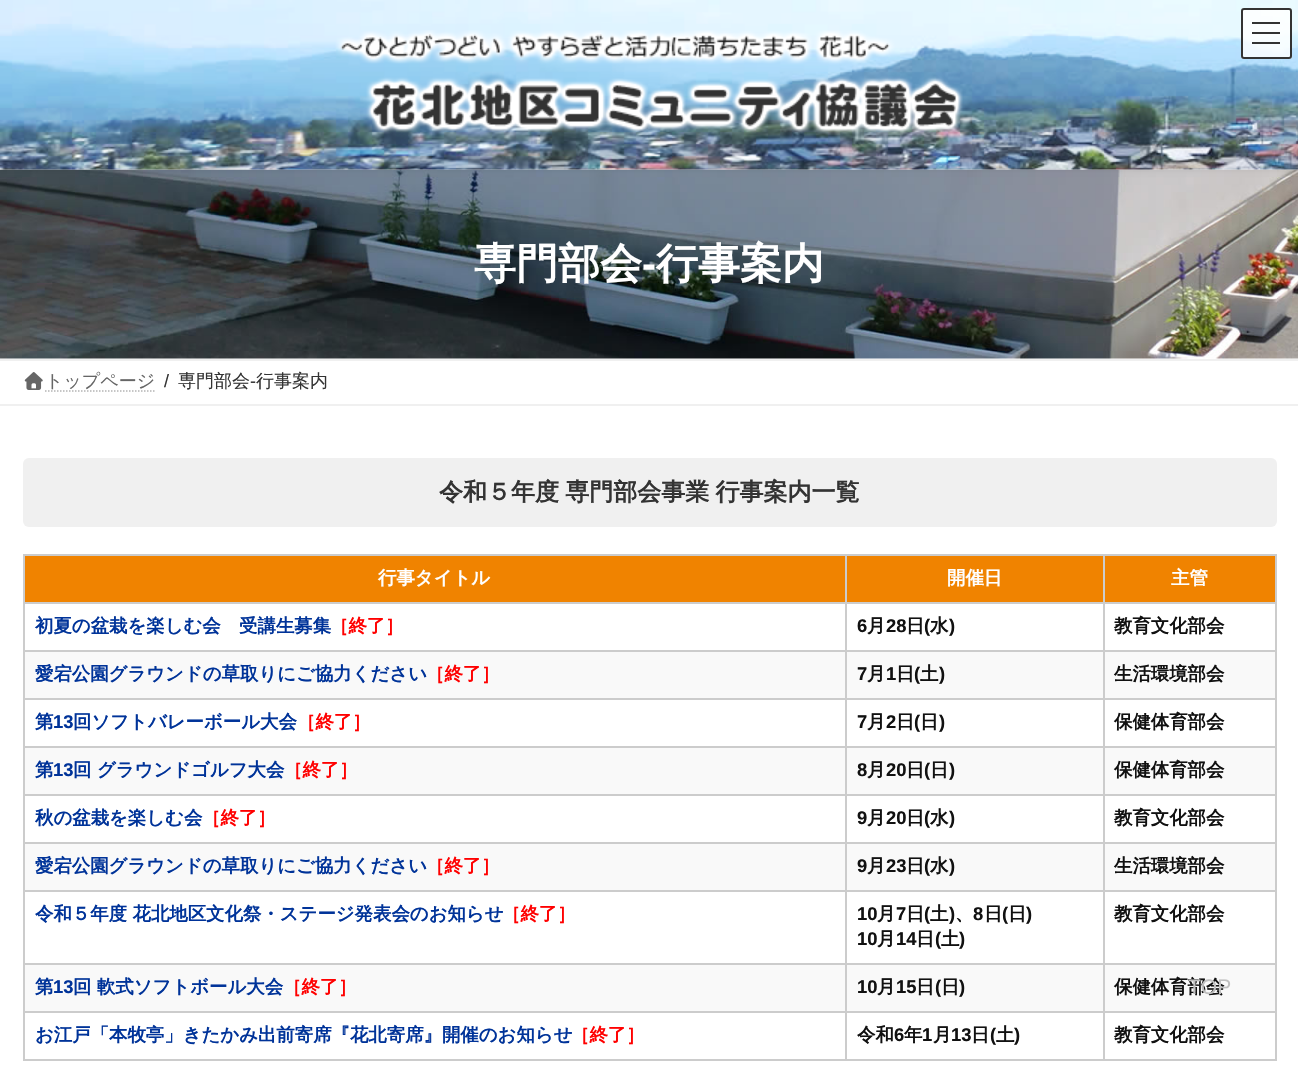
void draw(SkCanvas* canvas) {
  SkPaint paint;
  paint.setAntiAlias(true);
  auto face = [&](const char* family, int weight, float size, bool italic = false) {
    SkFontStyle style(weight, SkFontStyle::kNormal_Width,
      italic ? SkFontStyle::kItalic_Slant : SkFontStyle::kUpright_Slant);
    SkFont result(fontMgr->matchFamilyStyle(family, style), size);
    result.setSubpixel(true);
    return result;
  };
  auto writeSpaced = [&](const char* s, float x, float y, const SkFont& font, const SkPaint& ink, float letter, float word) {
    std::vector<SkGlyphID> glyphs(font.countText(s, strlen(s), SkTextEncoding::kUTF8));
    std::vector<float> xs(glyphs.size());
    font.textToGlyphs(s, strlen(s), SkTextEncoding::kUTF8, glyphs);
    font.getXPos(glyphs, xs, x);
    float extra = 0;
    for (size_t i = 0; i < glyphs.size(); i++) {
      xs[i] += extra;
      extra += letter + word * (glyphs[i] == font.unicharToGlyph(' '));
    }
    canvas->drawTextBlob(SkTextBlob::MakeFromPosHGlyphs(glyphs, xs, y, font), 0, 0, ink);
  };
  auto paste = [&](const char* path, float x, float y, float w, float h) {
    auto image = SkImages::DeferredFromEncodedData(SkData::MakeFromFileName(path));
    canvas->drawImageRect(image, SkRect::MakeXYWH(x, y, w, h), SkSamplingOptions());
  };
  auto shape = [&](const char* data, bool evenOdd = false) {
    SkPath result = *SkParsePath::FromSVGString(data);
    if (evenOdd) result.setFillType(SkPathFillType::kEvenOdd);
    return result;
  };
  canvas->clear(0xffffffff);
  paste("img/3.png", 0, 169, 1298, 190);
  paint.setColor(0x0d000000);
  paint.setMaskFilter(SkMaskFilter::MakeBlur(kNormal_SkBlurStyle, 2));
  canvas->drawRect(SkRect::MakeXYWH(0, 2, 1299, 169), paint);
  paint.setMaskFilter(nullptr);
  paste("img/1.png", 0, 0, 1298, 170);
  paste("img/2.png", 335, 30, 628, 104);
  paint.setColor(0xccffffff);
  canvas->drawRoundRect(SkRect::MakeXYWH(1241, 8, 51, 51), 3, 3, paint);
  {
    const struct { float x, y, w, h; SkColor color; } items[] = {
      {1252, 22, 28, 2, 0xff323333},
      {1252, 32, 28, 2, 0xff323333},
      {1252, 42, 28, 2, 0xcc000000},
    };
    for (auto [x, y, w, h, color] : items) {
      paint.setColor(color);
      canvas->drawRect(SkRect::MakeXYWH(x, y, w, h), paint);
    }
  }
  paint.setStroke(true);
  paint.setStrokeWidth(2);
  paint.setColor(0xff333333);
  canvas->drawRoundRect(SkRect::MakeXYWH(1242, 9, 49, 49), 2, 2, paint);
  paint.setStroke(false);
  paint.setColor(0xfff0f0f0);
  canvas->drawRect(SkRect::MakeXYWH(0, 359, 1298, 2), paint);
  canvas->drawRect(SkRect::MakeXYWH(0, 404, 1298, 2), paint);
  paste("img/4.png", 24, 372, 19, 18);
  paint.setStroke(true);
  paint.setStrokeWidth(1.5f);
  paint.setColor(0xffb3b3b3);
  paint.setPathEffect(SkDashPathEffect::Make({{1.5f, 1.5f}}, 0));
  canvas->drawPath(shape("M45 391H155"), paint);
  paint.setPathEffect(nullptr);
  paint.setStroke(false);
  paint.setColor(0xfff0f0f0);
  canvas->drawRoundRect(SkRect::MakeXYWH(23, 458, 1254, 69), 6, 6, paint);
  {
    const struct { float x, y, w, h; SkColor color; } items[] = {
      {25, 556, 820, 46, 0xfff08300},
      {1103, 554, 174, 2, 0xffcccccc},
      {1103, 602, 174, 2, 0xffcccccc},
      {1103, 650, 174, 2, 0xffcccccc},
      {1103, 698, 174, 2, 0xffcccccc},
      {1103, 746, 174, 2, 0xffcccccc},
      {1103, 794, 174, 2, 0xffcccccc},
      {1103, 842, 174, 2, 0xffcccccc},
      {1103, 890, 174, 2, 0xffcccccc},
      {1103, 963, 174, 2, 0xffcccccc},
      {1103, 1011, 174, 2, 0xffcccccc},
      {1275, 1011, 2, 50, 0xffcccccc},
      {1103, 1059, 174, 2, 0xffcccccc},
      {1103, 1011, 2, 50, 0xffcccccc},
      {845, 1011, 259, 2, 0xffcccccc},
      {1103, 963, 2, 50, 0xffcccccc},
      {845, 963, 259, 2, 0xffcccccc},
      {1103, 890, 2, 75, 0xffcccccc},
      {845, 890, 259, 2, 0xffcccccc},
      {1103, 842, 2, 49, 0xffcccccc},
      {845, 842, 259, 2, 0xffcccccc},
      {1103, 794, 2, 49, 0xffcccccc},
      {845, 794, 259, 2, 0xffcccccc},
      {1103, 746, 2, 49, 0xffcccccc},
      {845, 746, 259, 2, 0xffcccccc},
      {1103, 698, 2, 49, 0xffcccccc},
      {845, 698, 259, 2, 0xffcccccc},
      {1103, 650, 2, 49, 0xffcccccc},
      {845, 650, 259, 2, 0xffcccccc},
      {1103, 602, 2, 49, 0xffcccccc},
      {845, 602, 259, 2, 0xffcccccc},
      {1103, 554, 2, 49, 0xffcccccc},
      {845, 554, 259, 2, 0xffcccccc},
      {845, 1059, 259, 2, 0xffcccccc},
      {845, 1011, 2, 50, 0xffcccccc},
      {23, 1011, 823, 2, 0xffcccccc},
      {845, 963, 2, 50, 0xffcccccc},
      {23, 963, 823, 2, 0xffcccccc},
      {845, 890, 2, 75, 0xffcccccc},
      {23, 890, 823, 2, 0xffcccccc},
      {845, 842, 2, 49, 0xffcccccc},
      {23, 842, 823, 2, 0xffcccccc},
      {845, 794, 2, 49, 0xffcccccc},
      {23, 794, 823, 2, 0xffcccccc},
      {845, 746, 2, 49, 0xffcccccc},
      {23, 746, 823, 2, 0xffcccccc},
      {845, 698, 2, 49, 0xffcccccc},
      {23, 698, 823, 2, 0xffcccccc},
      {845, 650, 2, 49, 0xffcccccc},
      {23, 650, 823, 2, 0xffcccccc},
      {845, 602, 2, 49, 0xffcccccc},
      {23, 602, 823, 2, 0xffcccccc},
      {845, 554, 2, 49, 0xffcccccc},
      {23, 554, 823, 2, 0xffcccccc},
      {23, 1059, 823, 2, 0xffcccccc},
      {23, 1011, 2, 50, 0xffcccccc},
      {23, 963, 2, 50, 0xffcccccc},
      {23, 890, 2, 75, 0xffcccccc},
      {23, 842, 2, 49, 0xffcccccc},
      {23, 794, 2, 49, 0xffcccccc},
      {23, 746, 2, 49, 0xffcccccc},
      {23, 698, 2, 49, 0xffcccccc},
      {23, 650, 2, 49, 0xffcccccc},
      {23, 602, 2, 49, 0xffcccccc},
      {23, 554, 2, 49, 0xffcccccc},
      {847, 556, 256, 46, 0xfff08300},
      {1105, 556, 170, 46, 0xfff08300},
      {1275, 963, 2, 50, 0xffcccccc},
      {1275, 890, 2, 75, 0xffcccccc},
      {1275, 842, 2, 49, 0xffcccccc},
      {1275, 794, 2, 49, 0xffcccccc},
      {1275, 746, 2, 49, 0xffcccccc},
      {1275, 698, 2, 49, 0xffcccccc},
      {1275, 650, 2, 49, 0xffcccccc},
      {1275, 602, 2, 49, 0xffcccccc},
      {1275, 554, 2, 49, 0xffcccccc},
      {25, 652, 820, 46, 0xfff9f9f9},
      {847, 652, 256, 46, 0xfff9f9f9},
      {1105, 652, 170, 46, 0xfff9f9f9},
      {25, 748, 820, 46, 0xfff9f9f9},
      {847, 748, 256, 46, 0xfff9f9f9},
      {1105, 748, 170, 46, 0xfff9f9f9},
      {25, 844, 820, 46, 0xfff9f9f9},
      {847, 844, 256, 46, 0xfff9f9f9},
      {1105, 844, 170, 46, 0xfff9f9f9},
      {25, 965, 820, 46, 0xfff9f9f9},
      {847, 965, 256, 46, 0xfff9f9f9},
      {1105, 965, 170, 46, 0xfff9f9f9},
    };
    for (auto [x, y, w, h, color] : items) {
      paint.setColor(color);
      canvas->drawRect(SkRect::MakeXYWH(x, y, w, h), paint);
    }
  }
  auto f0 = face("WenQuanYi Zen Hei", 700, 42);
  paint.setColor(0xffffffff);
  canvas->drawString("専門部会", 474, 278, f0, paint);
  auto f1 = face("Liberation Sans", 700, 42);
  canvas->drawString("-", 642, 278, f1, paint);
  canvas->drawString("行事案内", 656, 278, f0, paint);
  auto f2 = face("WenQuanYi Zen Hei", 500, 18);
  paint.setColor(0xff666666);
  canvas->drawString("トップページ", 45, 387, f2, paint);
  auto f3 = face("Liberation Sans", 400, 18);
  paint.setColor(0xff333333);
  canvas->drawString("/", 164, 387, f3, paint);
  canvas->drawString("専門部会", 178, 387, f2, paint);
  canvas->drawString("-", 250, 387, f3, paint);
  canvas->drawString("行事案内", 256, 387, f2, paint);
  auto f4 = face("WenQuanYi Zen Hei", 700, 24);
  writeSpaced("令和５年度 専門部会事業 行事案内一覧", 439, 500, f4, paint, 0, -1);
  auto f5 = face("WenQuanYi Zen Hei", 700, 18.4f);
  paint.setColor(0xffffffff);
  {
    const struct { const char* s; float x, y; } items[] = {
      {"行事タイトル", 378, 584},
      {"開催日", 947, 584},
      {"主管", 1171, 584},
    };
    for (auto [s, x, y] : items) {
      canvas->drawString(s, x, y, f5, paint);
    }
  }
  paint.setColor(0xff003399);
  canvas->drawString("初夏の盆栽を楽しむ会　受講生募集", 35, 632, f5, paint);
  paint.setColor(0xffff0000);
  canvas->drawString("［終了］", 330, 632, f5, paint);
  auto f6 = face("Liberation Sans", 700, 18.4f);
  paint.setColor(0xff111111);
  canvas->drawString("6", 857, 632, f6, paint);
  canvas->drawString("月", 867, 632, f5, paint);
  canvas->drawString("28", 886, 632, f6, paint);
  canvas->drawString("日", 906, 632, f5, paint);
  canvas->drawString("(", 924, 632, f6, paint);
  canvas->drawString("水", 930, 632, f5, paint);
  canvas->drawString(")", 949, 632, f6, paint);
  canvas->drawString("教育文化部会", 1114, 632, f5, paint);
  paint.setColor(0xff003399);
  canvas->drawString("愛宕公園グラウンドの草取りにご協力ください", 35, 680, f5, paint);
  paint.setColor(0xffff0000);
  canvas->drawString("［終了］", 426, 680, f5, paint);
  paint.setColor(0xff111111);
  canvas->drawString("7", 857, 680, f6, paint);
  canvas->drawString("月", 867, 680, f5, paint);
  canvas->drawString("1", 886, 680, f6, paint);
  canvas->drawString("日", 896, 680, f5, paint);
  canvas->drawString("(", 914, 680, f6, paint);
  canvas->drawString("土", 920, 680, f5, paint);
  canvas->drawString(")", 939, 680, f6, paint);
  canvas->drawString("生活環境部会", 1114, 680, f5, paint);
  paint.setColor(0xff003399);
  canvas->drawString("第", 35, 728, f5, paint);
  canvas->drawString("13", 53, 728, f6, paint);
  canvas->drawString("回ソフトバレーボール大会", 73, 728, f5, paint);
  paint.setColor(0xffff0000);
  canvas->drawString("［終了］", 297, 728, f5, paint);
  paint.setColor(0xff111111);
  canvas->drawString("7", 857, 728, f6, paint);
  canvas->drawString("月", 867, 728, f5, paint);
  canvas->drawString("2", 886, 728, f6, paint);
  canvas->drawString("日", 896, 728, f5, paint);
  canvas->drawString("(", 914, 728, f6, paint);
  canvas->drawString("日", 920, 728, f5, paint);
  canvas->drawString(")", 939, 728, f6, paint);
  canvas->drawString("保健体育部会", 1114, 728, f5, paint);
  paint.setColor(0xff003399);
  canvas->drawString("第", 35, 776, f5, paint);
  canvas->drawString("13", 53, 776, f6, paint);
  canvas->drawString("回 グラウンドゴルフ大会", 73, 776, f5, paint);
  paint.setColor(0xffff0000);
  canvas->drawString("［終了］", 284, 776, f5, paint);
  paint.setColor(0xff111111);
  canvas->drawString("8", 857, 776, f6, paint);
  canvas->drawString("月", 867, 776, f5, paint);
  canvas->drawString("20", 886, 776, f6, paint);
  canvas->drawString("日", 906, 776, f5, paint);
  canvas->drawString("(", 924, 776, f6, paint);
  canvas->drawString("日", 930, 776, f5, paint);
  canvas->drawString(")", 949, 776, f6, paint);
  canvas->drawString("保健体育部会", 1114, 776, f5, paint);
  paint.setColor(0xff003399);
  canvas->drawString("秋の盆栽を楽しむ会", 35, 824, f5, paint);
  paint.setColor(0xffff0000);
  canvas->drawString("［終了］", 202, 824, f5, paint);
  paint.setColor(0xff111111);
  canvas->drawString("9", 857, 824, f6, paint);
  canvas->drawString("月", 867, 824, f5, paint);
  canvas->drawString("20", 886, 824, f6, paint);
  canvas->drawString("日", 906, 824, f5, paint);
  canvas->drawString("(", 924, 824, f6, paint);
  canvas->drawString("水", 930, 824, f5, paint);
  canvas->drawString(")", 949, 824, f6, paint);
  canvas->drawString("教育文化部会", 1114, 824, f5, paint);
  paint.setColor(0xff003399);
  canvas->drawString("愛宕公園グラウンドの草取りにご協力ください", 35, 872, f5, paint);
  paint.setColor(0xffff0000);
  canvas->drawString("［終了］", 426, 872, f5, paint);
  paint.setColor(0xff111111);
  canvas->drawString("9", 857, 872, f6, paint);
  canvas->drawString("月", 867, 872, f5, paint);
  canvas->drawString("23", 886, 872, f6, paint);
  canvas->drawString("日", 906, 872, f5, paint);
  canvas->drawString("(", 924, 872, f6, paint);
  canvas->drawString("水", 930, 872, f5, paint);
  canvas->drawString(")", 949, 872, f6, paint);
  canvas->drawString("生活環境部会", 1114, 872, f5, paint);
  paint.setColor(0xff003399);
  canvas->drawString("令和５年度 花北地区文化祭・ステージ発表会のお知らせ", 35, 920, f5, paint);
  paint.setColor(0xffff0000);
  canvas->drawString("［終了］", 502, 920, f5, paint);
  paint.setColor(0xff111111);
  canvas->drawString("10", 857, 920, f6, paint);
  canvas->drawString("月", 877, 920, f5, paint);
  canvas->drawString("7", 896, 920, f6, paint);
  canvas->drawString("日", 906, 920, f5, paint);
  canvas->drawString("(", 924, 920, f6, paint);
  canvas->drawString("土", 930, 920, f5, paint);
  canvas->drawString(")", 949, 920, f6, paint);
  canvas->drawString("、", 955, 920, f5, paint);
  canvas->drawString("8", 973, 920, f6, paint);
  canvas->drawString("日", 984, 920, f5, paint);
  canvas->drawString("(", 1002, 920, f6, paint);
  canvas->drawString("日", 1008, 920, f5, paint);
  canvas->drawString(")", 1026, 920, f6, paint);
  canvas->drawString("10", 857, 945, f6, paint);
  canvas->drawString("月", 877, 945, f5, paint);
  canvas->drawString("14", 896, 945, f6, paint);
  canvas->drawString("日", 916, 945, f5, paint);
  canvas->drawString("(", 935, 945, f6, paint);
  canvas->drawString("土", 941, 945, f5, paint);
  canvas->drawString(")", 959, 945, f6, paint);
  canvas->drawString("教育文化部会", 1114, 920, f5, paint);
  paint.setColor(0xff003399);
  canvas->drawString("第", 35, 993, f5, paint);
  canvas->drawString("13", 53, 993, f6, paint);
  canvas->drawString("回 軟式ソフトボール大会", 73, 993, f5, paint);
  paint.setColor(0xffff0000);
  canvas->drawString("［終了］", 283, 993, f5, paint);
  paint.setColor(0xff111111);
  canvas->drawString("10", 857, 993, f6, paint);
  canvas->drawString("月", 877, 993, f5, paint);
  canvas->drawString("15", 896, 993, f6, paint);
  canvas->drawString("日", 916, 993, f5, paint);
  canvas->drawString("(", 935, 993, f6, paint);
  canvas->drawString("日", 941, 993, f5, paint);
  canvas->drawString(")", 959, 993, f6, paint);
  canvas->drawString("保健体育部会", 1114, 993, f5, paint);
  paint.setColor(0xff003399);
  canvas->drawString("お江戸「本牧亭」きたかみ出前寄席『花北寄席』開催のお知らせ", 35, 1041, f5, paint);
  paint.setColor(0xffff0000);
  canvas->drawString("［終了］", 571, 1041, f5, paint);
  paint.setColor(0xff111111);
  canvas->drawString("令和", 857, 1041, f5, paint);
  canvas->drawString("6", 894, 1041, f6, paint);
  canvas->drawString("年", 904, 1041, f5, paint);
  canvas->drawString("1", 922, 1041, f6, paint);
  canvas->drawString("月", 933, 1041, f5, paint);
  canvas->drawString("13", 951, 1041, f6, paint);
  canvas->drawString("日", 971, 1041, f5, paint);
  canvas->drawString("(", 990, 1041, f6, paint);
  canvas->drawString("土", 996, 1041, f5, paint);
  canvas->drawString(")", 1014, 1041, f6, paint);
  canvas->drawString("教育文化部会", 1114, 1041, f5, paint);
  auto f7 = face("Liberation Sans", 400, 21);
  paint.setColor(0xffbfbfbf);
  canvas->drawString("TOP", 1188, 994, f7, paint);
}
